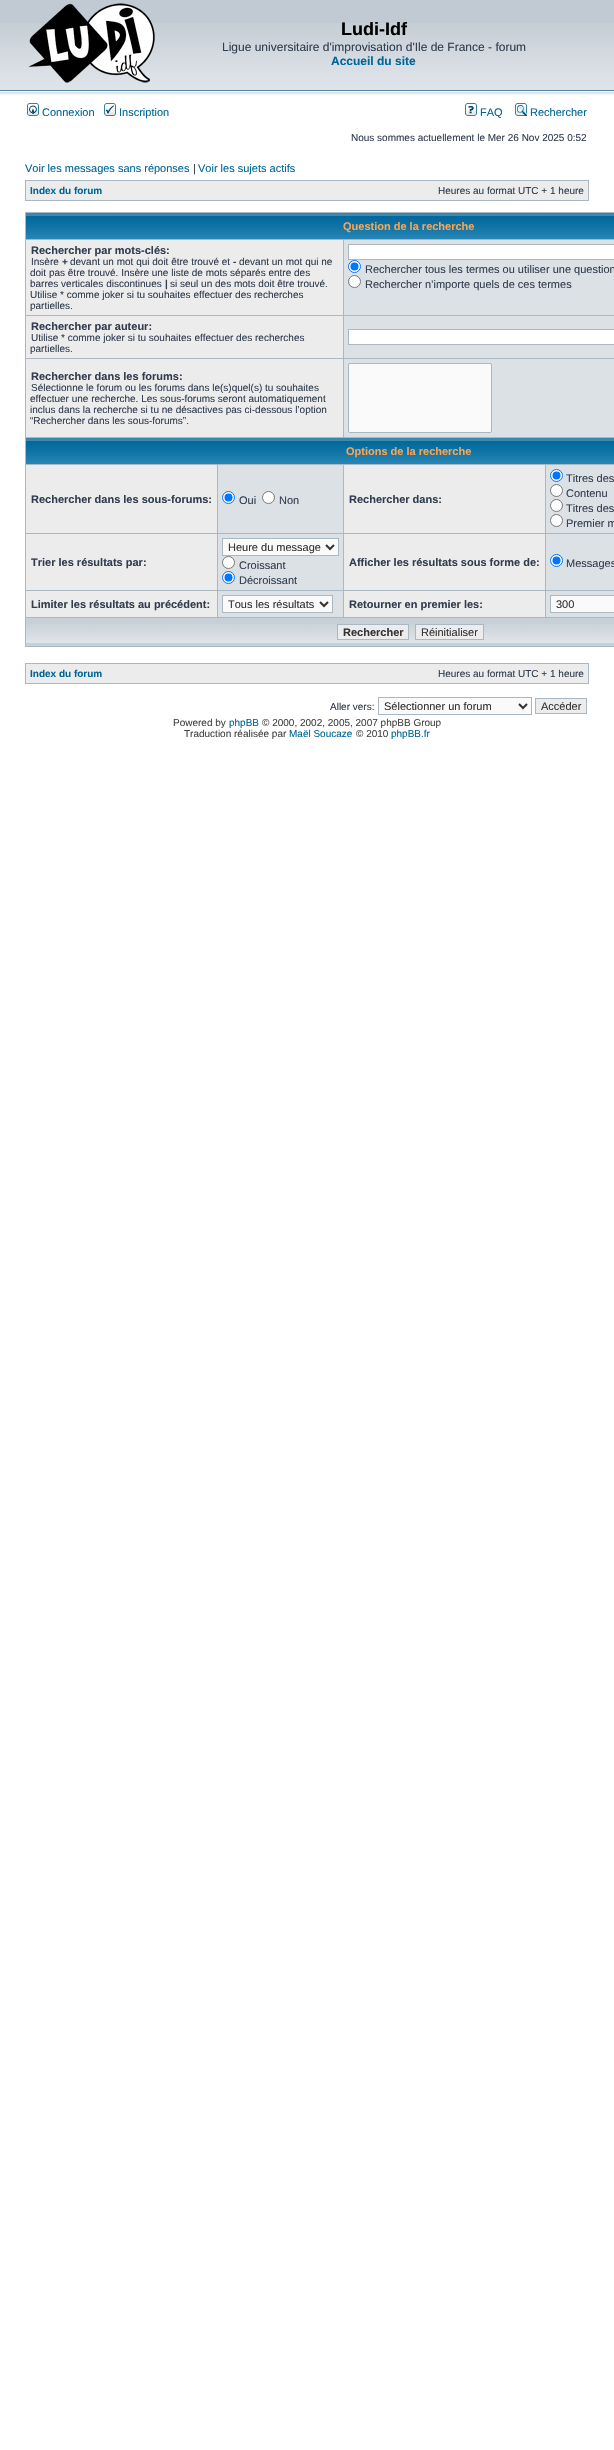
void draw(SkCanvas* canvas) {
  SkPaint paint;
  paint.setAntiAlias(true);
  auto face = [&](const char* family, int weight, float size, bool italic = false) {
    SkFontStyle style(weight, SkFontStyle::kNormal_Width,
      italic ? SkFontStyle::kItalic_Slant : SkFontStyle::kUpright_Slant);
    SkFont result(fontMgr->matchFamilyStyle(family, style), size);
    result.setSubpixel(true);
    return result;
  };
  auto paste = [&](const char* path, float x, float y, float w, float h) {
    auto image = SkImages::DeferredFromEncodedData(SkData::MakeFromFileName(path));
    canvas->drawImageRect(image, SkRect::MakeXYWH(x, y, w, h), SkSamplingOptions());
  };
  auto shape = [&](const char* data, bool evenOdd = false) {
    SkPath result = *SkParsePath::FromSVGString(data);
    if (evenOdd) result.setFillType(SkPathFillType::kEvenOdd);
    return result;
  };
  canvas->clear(0xffffffff);
  paint.setColor(0xffc1cad2);
  canvas->drawRect(SkRect::MakeXYWH(0, 0, 614, 23), paint);
  paste("img/1.png", 0, 23, 614, 78);
  paste("img/2.png", 28, 3, 127, 80);
  paste("img/3.png", 27, 103, 12, 13);
  paste("img/4.png", 104, 103, 12, 13);
  paste("img/5.png", 465, 103, 12, 13);
  paste("img/6.png", 515, 103, 12, 13);
  {
    const struct { float x, y, w, h; SkColor color; } items[] = {
      {25, 180, 564, 21, 0xffa9b8c2},
      {26, 181, 562, 19, 0xffececec},
      {25, 212, 589, 435, 0xffa9b8c2},
    };
    for (auto [x, y, w, h, color] : items) {
      paint.setColor(color);
      canvas->drawRect(SkRect::MakeXYWH(x, y, w, h), paint);
    }
  }
  paste("img/7.png", 26, 213, 588, 26);
  paint.setColor(0xffececec);
  canvas->drawRect(SkRect::MakeXYWH(26, 240, 317, 75), paint);
  paint.setColor(0xffdce1e5);
  canvas->drawRect(SkRect::MakeXYWH(344, 240, 270, 75), paint);
  paint.setColor(0xffffffff);
  canvas->drawRect(SkRect::MakeXYWH(348.5f, 244.5f, 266, 15), paint);
  paint.setStroke(true);
  paint.setStrokeWidth(1);
  paint.setColor(0xffa9b8c2);
  canvas->drawRect(SkRect::MakeXYWH(348.5f, 244.5f, 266, 15), paint);
  paint.setStroke(false);
  paint.setColor(0xffffffff);
  canvas->drawCircle(354.5f, 266.5f, 6, paint);
  paint.setStroke(true);
  paint.setColor(0xff0075ff);
  canvas->drawCircle(354.5f, 266.5f, 6, paint);
  paint.setStroke(false);
  canvas->drawCircle(354.5f, 266.5f, 4, paint);
  paint.setColor(0xffffffff);
  canvas->drawCircle(354.5f, 281.5f, 6, paint);
  paint.setStroke(true);
  paint.setColor(0xff767676);
  canvas->drawCircle(354.5f, 281.5f, 6, paint);
  paint.setStroke(false);
  paint.setColor(0xffececec);
  canvas->drawRect(SkRect::MakeXYWH(26, 316, 317, 42), paint);
  paint.setColor(0xffdce1e5);
  canvas->drawRect(SkRect::MakeXYWH(344, 316, 270, 42), paint);
  paint.setColor(0xffffffff);
  canvas->drawRect(SkRect::MakeXYWH(348.5f, 329.5f, 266, 15), paint);
  paint.setStroke(true);
  paint.setColor(0xffa9b8c2);
  canvas->drawRect(SkRect::MakeXYWH(348.5f, 329.5f, 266, 15), paint);
  paint.setStroke(false);
  paint.setColor(0xffececec);
  canvas->drawRect(SkRect::MakeXYWH(26, 359, 317, 78), paint);
  paint.setColor(0xffdce1e5);
  canvas->drawRect(SkRect::MakeXYWH(344, 359, 270, 78), paint);
  paint.setColor(0xfffafafa);
  canvas->drawRoundRect(SkRect::MakeXYWH(348.5f, 363.5f, 143, 69), 1.5f, 1.5f, paint);
  paint.setStroke(true);
  paint.setColor(0xffa9b8c2);
  canvas->drawRoundRect(SkRect::MakeXYWH(348.5f, 363.5f, 143, 69), 1.5f, 1.5f, paint);
  paste("img/7.png", 26, 438, 588, 26);
  paint.setStroke(false);
  paint.setColor(0xffececec);
  canvas->drawRect(SkRect::MakeXYWH(26, 465, 191, 68), paint);
  paint.setColor(0xffdce1e5);
  canvas->drawRect(SkRect::MakeXYWH(218, 465, 125, 68), paint);
  paint.setColor(0xffffffff);
  canvas->drawCircle(228.5f, 497.5f, 6, paint);
  paint.setStroke(true);
  paint.setColor(0xff0075ff);
  canvas->drawCircle(228.5f, 497.5f, 6, paint);
  paint.setStroke(false);
  canvas->drawCircle(228.5f, 497.5f, 4, paint);
  paint.setColor(0xffffffff);
  canvas->drawCircle(268.5f, 497.5f, 6, paint);
  paint.setStroke(true);
  paint.setColor(0xff767676);
  canvas->drawCircle(268.5f, 497.5f, 6, paint);
  paint.setStroke(false);
  paint.setColor(0xffececec);
  canvas->drawRect(SkRect::MakeXYWH(344, 465, 201, 68), paint);
  paint.setColor(0xffdce1e5);
  canvas->drawRect(SkRect::MakeXYWH(546, 465, 68, 68), paint);
  paint.setColor(0xffffffff);
  canvas->drawCircle(556.5f, 475.5f, 6, paint);
  paint.setStroke(true);
  paint.setColor(0xff0075ff);
  canvas->drawCircle(556.5f, 475.5f, 6, paint);
  paint.setStroke(false);
  canvas->drawCircle(556.5f, 475.5f, 4, paint);
  paint.setColor(0xffffffff);
  canvas->drawCircle(556.5f, 490.5f, 6, paint);
  paint.setStroke(true);
  paint.setColor(0xff767676);
  canvas->drawCircle(556.5f, 490.5f, 6, paint);
  paint.setStroke(false);
  paint.setColor(0xffffffff);
  canvas->drawCircle(556.5f, 505.5f, 6, paint);
  paint.setStroke(true);
  paint.setColor(0xff767676);
  canvas->drawCircle(556.5f, 505.5f, 6, paint);
  paint.setStroke(false);
  paint.setColor(0xffffffff);
  canvas->drawCircle(556.5f, 520.5f, 6, paint);
  paint.setStroke(true);
  paint.setColor(0xff767676);
  canvas->drawCircle(556.5f, 520.5f, 6, paint);
  paint.setStroke(false);
  paint.setColor(0xffececec);
  canvas->drawRect(SkRect::MakeXYWH(26, 534, 191, 56), paint);
  paint.setColor(0xffdce1e5);
  canvas->drawRect(SkRect::MakeXYWH(218, 534, 125, 56), paint);
  paint.setColor(0xfffafafa);
  canvas->drawRect(SkRect::MakeXYWH(222.5f, 538.5f, 116, 17), paint);
  paint.setStroke(true);
  paint.setColor(0xffa9b8c2);
  canvas->drawRect(SkRect::MakeXYWH(222.5f, 538.5f, 116, 17), paint);
  paint.setStrokeWidth(2);
  paint.setColor(0xff333333);
  canvas->drawPath(shape("M326 545L330 549L334 545"), paint);
  paint.setStroke(false);
  paint.setColor(0xffffffff);
  canvas->drawCircle(228.5f, 562.5f, 6, paint);
  paint.setStroke(true);
  paint.setStrokeWidth(1);
  paint.setColor(0xff767676);
  canvas->drawCircle(228.5f, 562.5f, 6, paint);
  paint.setStroke(false);
  paint.setColor(0xffffffff);
  canvas->drawCircle(228.5f, 577.5f, 6, paint);
  paint.setStroke(true);
  paint.setColor(0xff0075ff);
  canvas->drawCircle(228.5f, 577.5f, 6, paint);
  paint.setStroke(false);
  canvas->drawCircle(228.5f, 577.5f, 4, paint);
  paint.setColor(0xffececec);
  canvas->drawRect(SkRect::MakeXYWH(344, 534, 201, 56), paint);
  paint.setColor(0xffdce1e5);
  canvas->drawRect(SkRect::MakeXYWH(546, 534, 68, 56), paint);
  paint.setColor(0xffffffff);
  canvas->drawCircle(556.5f, 560.5f, 6, paint);
  paint.setStroke(true);
  paint.setColor(0xff0075ff);
  canvas->drawCircle(556.5f, 560.5f, 6, paint);
  paint.setStroke(false);
  canvas->drawCircle(556.5f, 560.5f, 4, paint);
  paint.setColor(0xffececec);
  canvas->drawRect(SkRect::MakeXYWH(26, 591, 191, 26), paint);
  paint.setColor(0xffdce1e5);
  canvas->drawRect(SkRect::MakeXYWH(218, 591, 125, 26), paint);
  paint.setColor(0xfffafafa);
  canvas->drawRect(SkRect::MakeXYWH(222.5f, 595.5f, 110, 17), paint);
  paint.setStroke(true);
  paint.setColor(0xffa9b8c2);
  canvas->drawRect(SkRect::MakeXYWH(222.5f, 595.5f, 110, 17), paint);
  paint.setStrokeWidth(2);
  paint.setColor(0xff333333);
  canvas->drawPath(shape("M320 602L324 606L328 602"), paint);
  paint.setStroke(false);
  paint.setColor(0xffececec);
  canvas->drawRect(SkRect::MakeXYWH(344, 591, 201, 26), paint);
  paint.setColor(0xffdce1e5);
  canvas->drawRect(SkRect::MakeXYWH(546, 591, 68, 26), paint);
  paint.setColor(0xfffafafa);
  canvas->drawRect(SkRect::MakeXYWH(550.5f, 595.5f, 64, 17), paint);
  paint.setStroke(true);
  paint.setStrokeWidth(1);
  paint.setColor(0xffa9b8c2);
  canvas->drawRect(SkRect::MakeXYWH(550.5f, 595.5f, 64, 17), paint);
  paint.setStroke(false);
  paint.setColor(0xffc7d0d7);
  canvas->drawRect(SkRect::MakeXYWH(26, 618, 588, 28), paint);
  paste("img/8.png", 26, 624, 588, 19);
  paint.setColor(0xffececec);
  canvas->drawRect(SkRect::MakeXYWH(337.5f, 624.5f, 71, 15), paint);
  paint.setStroke(true);
  paint.setColor(0xffa9b8c2);
  canvas->drawRect(SkRect::MakeXYWH(337.5f, 624.5f, 71, 15), paint);
  paint.setStroke(false);
  paint.setColor(0xffececec);
  canvas->drawRect(SkRect::MakeXYWH(415.5f, 624.5f, 68, 15), paint);
  paint.setStroke(true);
  paint.setColor(0xffa9b8c2);
  canvas->drawRect(SkRect::MakeXYWH(415.5f, 624.5f, 68, 15), paint);
  paint.setStroke(false);
  canvas->drawRect(SkRect::MakeXYWH(25, 663, 564, 21), paint);
  paint.setColor(0xffececec);
  canvas->drawRect(SkRect::MakeXYWH(26, 664, 562, 19), paint);
  paint.setColor(0xfffafafa);
  canvas->drawRect(SkRect::MakeXYWH(378.5f, 697.5f, 153, 17), paint);
  paint.setStroke(true);
  paint.setColor(0xffa9b8c2);
  canvas->drawRect(SkRect::MakeXYWH(378.5f, 697.5f, 153, 17), paint);
  paint.setStrokeWidth(2);
  paint.setColor(0xff333333);
  canvas->drawPath(shape("M519 704L523 708L527 704"), paint);
  paint.setStroke(false);
  paint.setColor(0xffececec);
  canvas->drawRect(SkRect::MakeXYWH(535.5f, 698.5f, 51, 15), paint);
  paint.setStroke(true);
  paint.setStrokeWidth(1);
  paint.setColor(0xffa9b8c2);
  canvas->drawRect(SkRect::MakeXYWH(535.5f, 698.5f, 51, 15), paint);
  auto f0 = face("Liberation Sans", 700, 18);
  paint.setStroke(false);
  paint.setColor(0xff000000);
  canvas->drawString("Ludi-Idf", 341, 35, f0, paint);
  auto f1 = face("Liberation Sans", 400, 12);
  paint.setColor(0xff323d4f);
  canvas->drawString("Ligue universitaire d'improvisation d'Ile de France - forum", 222, 51, f1, paint);
  auto f2 = face("Liberation Sans", 700, 12);
  paint.setColor(0xff006597);
  canvas->drawString("Accueil du site", 331, 65, f2, paint);
  auto f3 = face("Liberation Sans", 400, 11);
  {
    const struct { const char* s; float x, y; } items[] = {
      {"Connexion", 42, 116},
      {"Inscription", 119, 116},
      {"FAQ", 480, 116},
      {"Rechercher", 530, 116},
    };
    for (auto [s, x, y] : items) {
      canvas->drawString(s, x, y, f3, paint);
    }
  }
  auto f4 = face("Liberation Sans", 400, 10);
  paint.setColor(0xff323d4f);
  canvas->drawString("Nous sommes actuellement le Mer 26 Nov 2025 0:52", 351, 141, f4, paint);
  paint.setColor(0xff006597);
  canvas->drawString("Voir les messages sans réponses", 25, 172, f3, paint);
  paint.setColor(0xff323d4f);
  canvas->drawString("|", 193, 172, f3, paint);
  paint.setColor(0xff006597);
  canvas->drawString("Voir les sujets actifs", 198, 172, f3, paint);
  auto f5 = face("Liberation Sans", 700, 10);
  canvas->drawString("Index du forum", 30, 194, f5, paint);
  paint.setColor(0xff323d4f);
  canvas->drawString("Heures au format UTC + 1 heure", 438, 194, f4, paint);
  auto f6 = face("Liberation Sans", 700, 11);
  paint.setColor(0xffffa34f);
  canvas->drawString("Question de la recherche", 343, 230, f6, paint);
  paint.setColor(0xff323d4f);
  canvas->drawString("Rechercher par mots-clés:", 31, 254, f6, paint);
  canvas->drawString("Insère", 31, 265, f4, paint);
  canvas->drawString("+", 62, 265, f5, paint);
  canvas->drawString("devant un mot qui doit être trouvé et", 70, 265, f4, paint);
  canvas->drawString("-", 233, 265, f5, paint);
  {
    const struct { const char* s; float x, y; } items[] = {
      {"devant un mot qui ne", 239, 265},
      {"doit pas être trouvé. Insère une liste de mots séparés entre des", 30, 276},
      {"barres verticales discontinues", 30, 287},
    };
    for (auto [s, x, y] : items) {
      canvas->drawString(s, x, y, f4, paint);
    }
  }
  canvas->drawString("|", 165, 287, f5, paint);
  {
    const struct { const char* s; float x, y; } items[] = {
      {"si seul un des mots doit être trouvé.", 170, 287},
      {"Utilise * comme joker si tu souhaites effectuer des recherches", 30, 298},
      {"partielles.", 30, 309},
    };
    for (auto [s, x, y] : items) {
      canvas->drawString(s, x, y, f4, paint);
    }
  }
  canvas->drawString("Rechercher tous les termes ou utiliser une question", 365, 273, f3, paint);
  canvas->drawString("Rechercher n’importe quels de ces termes", 365, 288, f3, paint);
  canvas->drawString("Rechercher par auteur:", 31, 330, f6, paint);
  canvas->drawString("Utilise * comme joker si tu souhaites effectuer des recherches", 31, 341, f4, paint);
  canvas->drawString("partielles.", 30, 352, f4, paint);
  canvas->drawString("Rechercher dans les forums:", 31, 380, f6, paint);
  {
    const struct { const char* s; float x, y; } items[] = {
      {"Sélectionne le forum ou les forums dans le(s)quel(s) tu souhaites", 31, 391},
      {"effectuer une recherche. Les sous-forums seront automatiquement", 30, 402},
      {"inclus dans la recherche si tu ne désactives pas ci-dessous l’option", 30, 413},
      {"“Rechercher dans les sous-forums”.", 30, 424},
    };
    for (auto [s, x, y] : items) {
      canvas->drawString(s, x, y, f4, paint);
    }
  }
  paint.setColor(0xffffa34f);
  canvas->drawString("Options de la recherche", 346, 455, f6, paint);
  paint.setColor(0xff323d4f);
  canvas->drawString("Rechercher dans les sous-forums:", 31, 503, f6, paint);
  canvas->drawString("Oui", 239, 504, f3, paint);
  canvas->drawString("Non", 279, 504, f3, paint);
  canvas->drawString("Rechercher dans:", 349, 503, f6, paint);
  {
    const struct { const char* s; float x, y; } items[] = {
      {"Titres des", 566, 482},
      {"Contenu", 566, 497},
      {"Titres des", 566, 512},
      {"Premier m", 566, 527},
    };
    for (auto [s, x, y] : items) {
      canvas->drawString(s, x, y, f3, paint);
    }
  }
  canvas->drawString("Trier les résultats par:", 31, 566, f6, paint);
  paint.setColor(0xff333333);
  canvas->drawString("Heure du message", 228, 551, f3, paint);
  paint.setColor(0xff323d4f);
  canvas->drawString("Croissant", 239, 569, f3, paint);
  canvas->drawString("Décroissant", 239, 584, f3, paint);
  canvas->drawString("Afficher les résultats sous forme de:", 349, 566, f6, paint);
  canvas->drawString("Messages", 566, 567, f3, paint);
  canvas->drawString("Limiter les résultats au précédent:", 31, 608, f6, paint);
  paint.setColor(0xff333333);
  canvas->drawString("Tous les résultats", 228, 608, f3, paint);
  paint.setColor(0xff323d4f);
  canvas->drawString("Retourner en premier les:", 349, 608, f6, paint);
  paint.setColor(0xff333333);
  canvas->drawString("300", 556, 608, f3, paint);
  canvas->drawString("Rechercher", 343, 636, f6, paint);
  canvas->drawString("Réinitialiser", 421, 636, f3, paint);
  paint.setColor(0xff006597);
  canvas->drawString("Index du forum", 30, 677, f5, paint);
  paint.setColor(0xff323d4f);
  canvas->drawString("Heures au format UTC + 1 heure", 438, 677, f4, paint);
  canvas->drawString("Aller vers:", 330, 710, f4, paint);
  paint.setColor(0xff333333);
  canvas->drawString("Sélectionner un forum", 384, 710, f3, paint);
  canvas->drawString("Accéder", 541, 710, f3, paint);
  paint.setColor(0xff444444);
  canvas->drawString("Powered by", 173, 726, f4, paint);
  paint.setColor(0xff006597);
  canvas->drawString("phpBB", 229, 726, f4, paint);
  paint.setColor(0xff444444);
  canvas->drawString("© 2000, 2002, 2005, 2007 phpBB Group", 262, 726, f4, paint);
  canvas->drawString("Traduction réalisée par", 184, 737, f4, paint);
  paint.setColor(0xff006597);
  canvas->drawString("Maël Soucaze", 289, 737, f4, paint);
  paint.setColor(0xff444444);
  canvas->drawString("© 2010", 356, 737, f4, paint);
  paint.setColor(0xff006597);
  canvas->drawString("phpBB.fr", 391, 737, f4, paint);
}
